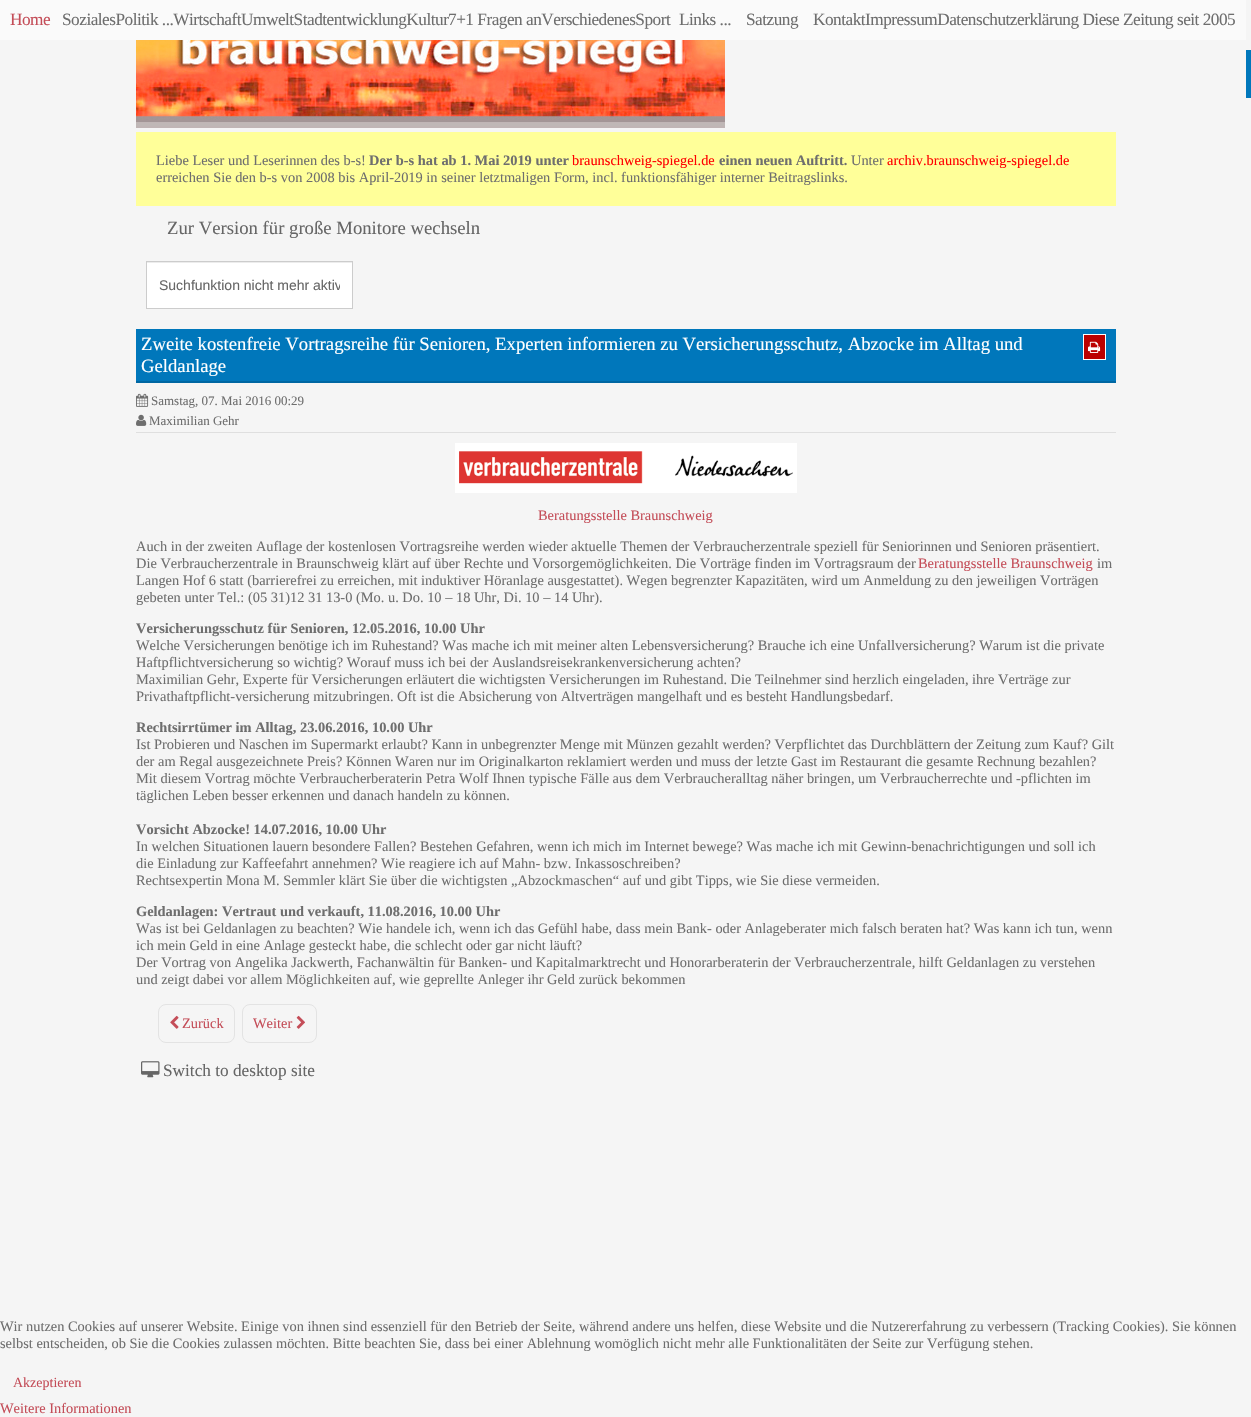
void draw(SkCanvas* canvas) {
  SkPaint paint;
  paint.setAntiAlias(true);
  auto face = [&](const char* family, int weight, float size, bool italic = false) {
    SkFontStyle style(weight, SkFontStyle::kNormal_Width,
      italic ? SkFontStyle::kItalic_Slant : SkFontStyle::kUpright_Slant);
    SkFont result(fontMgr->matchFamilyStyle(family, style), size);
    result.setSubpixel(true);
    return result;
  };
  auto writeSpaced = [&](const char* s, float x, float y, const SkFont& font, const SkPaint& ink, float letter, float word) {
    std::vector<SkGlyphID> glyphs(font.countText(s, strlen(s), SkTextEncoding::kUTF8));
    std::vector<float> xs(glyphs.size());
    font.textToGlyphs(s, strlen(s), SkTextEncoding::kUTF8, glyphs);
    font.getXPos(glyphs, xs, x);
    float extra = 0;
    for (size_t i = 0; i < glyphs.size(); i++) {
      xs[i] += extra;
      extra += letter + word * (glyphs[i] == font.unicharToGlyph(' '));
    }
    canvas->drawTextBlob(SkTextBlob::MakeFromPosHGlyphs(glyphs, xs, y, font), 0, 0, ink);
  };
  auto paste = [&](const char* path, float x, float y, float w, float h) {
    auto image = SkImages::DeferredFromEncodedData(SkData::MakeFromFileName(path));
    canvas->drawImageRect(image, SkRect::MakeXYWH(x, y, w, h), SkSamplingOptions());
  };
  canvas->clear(0xfff5f5f5);
  paint.setColor(0xfffafafa);
  canvas->drawRect(SkRect::MakeXYWH(0, 0, 1246, 40), paint);
  paint.setColor(0xff0077bb);
  canvas->drawRect(SkRect::MakeXYWH(1246, 50, 5, 48), paint);
  paste("img/1.png", 136, 40, 589, 88);
  {
    const struct { float x, y, w, h; SkColor color; } items[] = {
      {136, 132, 980, 74, 0xffffff99},
      {147, 263, 205, 45, 0xffffffff},
      {147, 262, 205, 1, 0xffececec},
    };
    for (auto [x, y, w, h, color] : items) {
      paint.setColor(color);
      canvas->drawRect(SkRect::MakeXYWH(x, y, w, h), paint);
    }
  }
  paint.setStroke(true);
  paint.setStrokeWidth(1);
  paint.setColor(0xffcccccc);
  canvas->drawRect(SkRect::MakeXYWH(146.5f, 261.5f, 206, 47), paint);
  paint.setStroke(false);
  paint.setColor(0xff0077bb);
  canvas->drawRect(SkRect::MakeXYWH(136, 329, 980, 52), paint);
  paint.setColor(0xff0067a2);
  canvas->drawRect(SkRect::MakeXYWH(136, 381, 980, 2), paint);
  paint.setColor(0xffbb0000);
  canvas->drawRect(SkRect::MakeXYWH(1083.5f, 334.5f, 22, 25), paint);
  paint.setStroke(true);
  paint.setColor(0xffffffff);
  canvas->drawRect(SkRect::MakeXYWH(1083.5f, 334.5f, 22, 25), paint);
  paste("img/2.png", 1088, 341, 13, 12);
  paint.setStroke(false);
  paint.setColor(0xffdfdfdf);
  canvas->drawRect(SkRect::MakeXYWH(136, 432, 980, 1), paint);
  paste("img/3.png", 136, 393, 13, 14);
  paste("img/4.png", 136, 414, 11, 12);
  paste("img/5.png", 455, 443, 342, 50);
  paint.setStroke(true);
  paint.setColor(0xffe3e3e3);
  canvas->drawRoundRect(SkRect::MakeXYWH(158.5f, 1004.5f, 76, 38), 7.5f, 7.5f, paint);
  paste("img/6.png", 170, 1015, 9, 14);
  canvas->drawRoundRect(SkRect::MakeXYWH(242.5f, 1004.5f, 74, 38), 7.5f, 7.5f, paint);
  paste("img/7.png", 296, 1015, 9, 14);
  paste("img/8.png", 141, 1061, 19, 17);
  auto f0 = face("Liberation Serif", 400, 17.25f);
  paint.setStroke(false);
  paint.setColor(0xffc44d58);
  writeSpaced("Home", 10, 25, f0, paint, -0.5f, 0);
  paint.setColor(0xff6e6e6e);
  {
    const struct { const char* s; float x, y; } items[] = {
      {"SozialesPolitik ...WirtschaftUmweltStadtentwicklungKultur", 62, 25},
      {"7+1 Fragen anVerschiedenesSport", 448, 25},
      {"Links ...", 679, 25},
      {"Satzung", 746, 25},
      {"KontaktImpressumDatenschutzerklärung Diese Zeitung seit 2005", 813, 25},
    };
    for (auto [s, x, y] : items) {
      writeSpaced(s, x, y, f0, paint, -0.5f, 0);
    }
  }
  auto f1 = face("Liberation Serif", 400, 14.4f);
  canvas->drawString("Liebe Leser und Leserinnen des b-s!", 156, 165, f1, paint);
  auto f2 = face("Liberation Serif", 700, 14.4f);
  canvas->drawString("Der b-s hat ab 1. Mai 2019 unter", 369, 165, f2, paint);
  paint.setColor(0xffff0000);
  canvas->drawString("braunschweig-spiegel.de", 572, 165, f1, paint);
  paint.setColor(0xff6e6e6e);
  canvas->drawString("einen neuen Auftritt.", 719, 165, f2, paint);
  canvas->drawString("Unter", 851, 165, f1, paint);
  paint.setColor(0xffff0000);
  canvas->drawString("archiv.braunschweig-spiegel.de", 887, 165, f1, paint);
  paint.setColor(0xff6e6e6e);
  canvas->drawString("erreichen Sie den b-s von 2008 bis April-2019 in seiner letztmaligen Form, incl. funktionsfähiger interner Beitragslinks.", 156, 182, f1, paint);
  auto f3 = face("Liberation Serif", 400, 18.7f);
  paint.setColor(0xff666666);
  canvas->drawString("Zur Version für große Monitore wechseln", 167, 234, f3, paint);
  canvas->save();
  canvas->clipRect(SkRect::MakeXYWH(159, 277, 181, 16));
  auto f4 = face("Liberation Sans", 400, 14);
  canvas->drawString("Suchfunktion nicht mehr aktiv", 159, 290, f4, paint);
  canvas->restore();
  paint.setColor(0xffffffff);
  canvas->drawString("Zweite kostenfreie Vortragsreihe für Senioren, Experten informieren zu Versicherungsschutz, Abzocke im Alltag und", 141, 350, f3, paint);
  canvas->drawString("Geldanlage", 141, 372, f3, paint);
  auto f5 = face("Liberation Serif", 400, 13);
  paint.setColor(0xff6e6e6e);
  canvas->drawString("Samstag, 07. Mai 2016 00:29", 151, 405, f5, paint);
  canvas->drawString("Maximilian Gehr", 149, 425, f5, paint);
  paint.setColor(0xffc44d58);
  canvas->drawString("Beratungsstelle Braunschweig", 538, 520, f1, paint);
  paint.setColor(0xff6e6e6e);
  canvas->drawString("Auch in der zweiten Auflage der kostenlosen Vortragsreihe werden wieder aktuelle Themen der Verbraucherzentrale speziell für Seniorinnen und Senioren präsentiert.", 136, 551, f1, paint);
  canvas->drawString("Die Verbraucherzentrale in Braunschweig klärt auf über Rechte und Vorsorgemöglichkeiten. Die Vorträge finden im Vortragsraum der", 136, 568, f1, paint);
  paint.setColor(0xffc44d58);
  canvas->drawString("Beratungsstelle Braunschweig", 918, 568, f1, paint);
  paint.setColor(0xff6e6e6e);
  {
    const struct { const char* s; float x, y; } items[] = {
      {"im", 1097, 568},
      {"Langen Hof 6 statt (barrierefrei zu erreichen, mit induktiver Höranlage ausgestattet). Wegen begrenzter Kapazitäten, wird um Anmeldung zu den jeweiligen Vorträgen", 136, 585},
      {"gebeten unter Tel.: (05 31)12 31 13-0 (Mo. u. Do. 10 – 18 Uhr, Di. 10 – 14 Uhr).", 136, 602},
    };
    for (auto [s, x, y] : items) {
      canvas->drawString(s, x, y, f1, paint);
    }
  }
  canvas->drawString("Versicherungsschutz für Senioren, 12.05.2016, 10.00 Uhr", 136, 633, f2, paint);
  {
    const struct { const char* s; float x, y; } items[] = {
      {"Welche Versicherungen benötige ich im Ruhestand? Was mache ich mit meiner alten Lebensversicherung? Brauche ich eine Unfallversicherung? Warum ist die private", 136, 650},
      {"Haftpflichtversicherung so wichtig? Worauf muss ich bei der Auslandsreisekrankenversicherung achten?", 136, 667},
      {"Maximilian Gehr, Experte für Versicherungen erläutert die wichtigsten Versicherungen im Ruhestand. Die Teilnehmer sind herzlich eingeladen, ihre Verträge zur", 136, 684},
      {"Privathaftpflicht-versicherung mitzubringen. Oft ist die Absicherung von Altverträgen mangelhaft und es besteht Handlungsbedarf.", 136, 701},
    };
    for (auto [s, x, y] : items) {
      canvas->drawString(s, x, y, f1, paint);
    }
  }
  canvas->drawString("Rechtsirrtümer im Alltag, 23.06.2016, 10.00 Uhr", 136, 732, f2, paint);
  {
    const struct { const char* s; float x, y; } items[] = {
      {"Ist Probieren und Naschen im Supermarkt erlaubt? Kann in unbegrenzter Menge mit Münzen gezahlt werden? Verpflichtet das Durchblättern der Zeitung zum Kauf? Gilt", 136, 749},
      {"der am Regal ausgezeichnete Preis? Können Waren nur im Originalkarton reklamiert werden und muss der letzte Gast im Restaurant die gesamte Rechnung bezahlen?", 136, 766},
      {"Mit diesem Vortrag möchte Verbraucherberaterin Petra Wolf Ihnen typische Fälle aus dem Verbraucheralltag näher bringen, um Verbraucherrechte und -pflichten im", 136, 783},
      {"täglichen Leben besser erkennen und danach handeln zu können.", 136, 800},
    };
    for (auto [s, x, y] : items) {
      canvas->drawString(s, x, y, f1, paint);
    }
  }
  canvas->drawString("Vorsicht Abzocke! 14.07.2016, 10.00 Uhr", 136, 834, f2, paint);
  {
    const struct { const char* s; float x, y; } items[] = {
      {"In welchen Situationen lauern besondere Fallen? Bestehen Gefahren, wenn ich mich im Internet bewege? Was mache ich mit Gewinn-benachrichtigungen und soll ich", 136, 851},
      {"die Einladung zur Kaffeefahrt annehmen? Wie reagiere ich auf Mahn- bzw. Inkassoschreiben?", 136, 868},
      {"Rechtsexpertin Mona M. Semmler klärt Sie über die wichtigsten „Abzockmaschen“ auf und gibt Tipps, wie Sie diese vermeiden.", 136, 885},
    };
    for (auto [s, x, y] : items) {
      canvas->drawString(s, x, y, f1, paint);
    }
  }
  canvas->drawString("Geldanlagen: Vertraut und verkauft, 11.08.2016, 10.00 Uhr", 136, 916, f2, paint);
  {
    const struct { const char* s; float x, y; } items[] = {
      {"Was ist bei Geldanlagen zu beachten? Wie handele ich, wenn ich das Gefühl habe, dass mein Bank- oder Anlageberater mich falsch beraten hat? Was kann ich tun, wenn", 136, 933},
      {"ich mein Geld in eine Anlage gesteckt habe, die schlecht oder gar nicht läuft?", 136, 950},
      {"Der Vortrag von Angelika Jackwerth, Fachanwältin für Banken- und Kapitalmarktrecht und Honorarberaterin der Verbraucherzentrale, hilft Geldanlagen zu verstehen", 136, 967},
      {"und zeigt dabei vor allem Möglichkeiten auf, wie geprellte Anleger ihr Geld zurück bekommen", 136, 984},
    };
    for (auto [s, x, y] : items) {
      canvas->drawString(s, x, y, f1, paint);
    }
  }
  paint.setColor(0xffc44d58);
  canvas->drawString("Zurück", 182, 1028, f1, paint);
  canvas->drawString("Weiter", 253, 1028, f1, paint);
  paint.setColor(0xff666666);
  canvas->drawString("Switch to desktop site", 163, 1076, f0, paint);
  paint.setColor(0xff6e6e6e);
  canvas->drawString("Wir nutzen Cookies auf unserer Website. Einige von ihnen sind essenziell für den Betrieb der Seite, während andere uns helfen, diese Website und die Nutzererfahrung zu verbessern (Tracking Cookies). Sie können", 0, 1331, f1, paint);
  canvas->drawString("selbst entscheiden, ob Sie die Cookies zulassen möchten. Bitte beachten Sie, dass bei einer Ablehnung womöglich nicht mehr alle Funktionalitäten der Seite zur Verfügung stehen.", 0, 1348, f1, paint);
  auto f6 = face("Liberation Serif", 400, 14);
  paint.setColor(0xffc44d58);
  canvas->drawString("Akzeptieren", 13, 1387, f6, paint);
  canvas->drawString("Weitere Informationen", 0, 1413, f1, paint);
}
